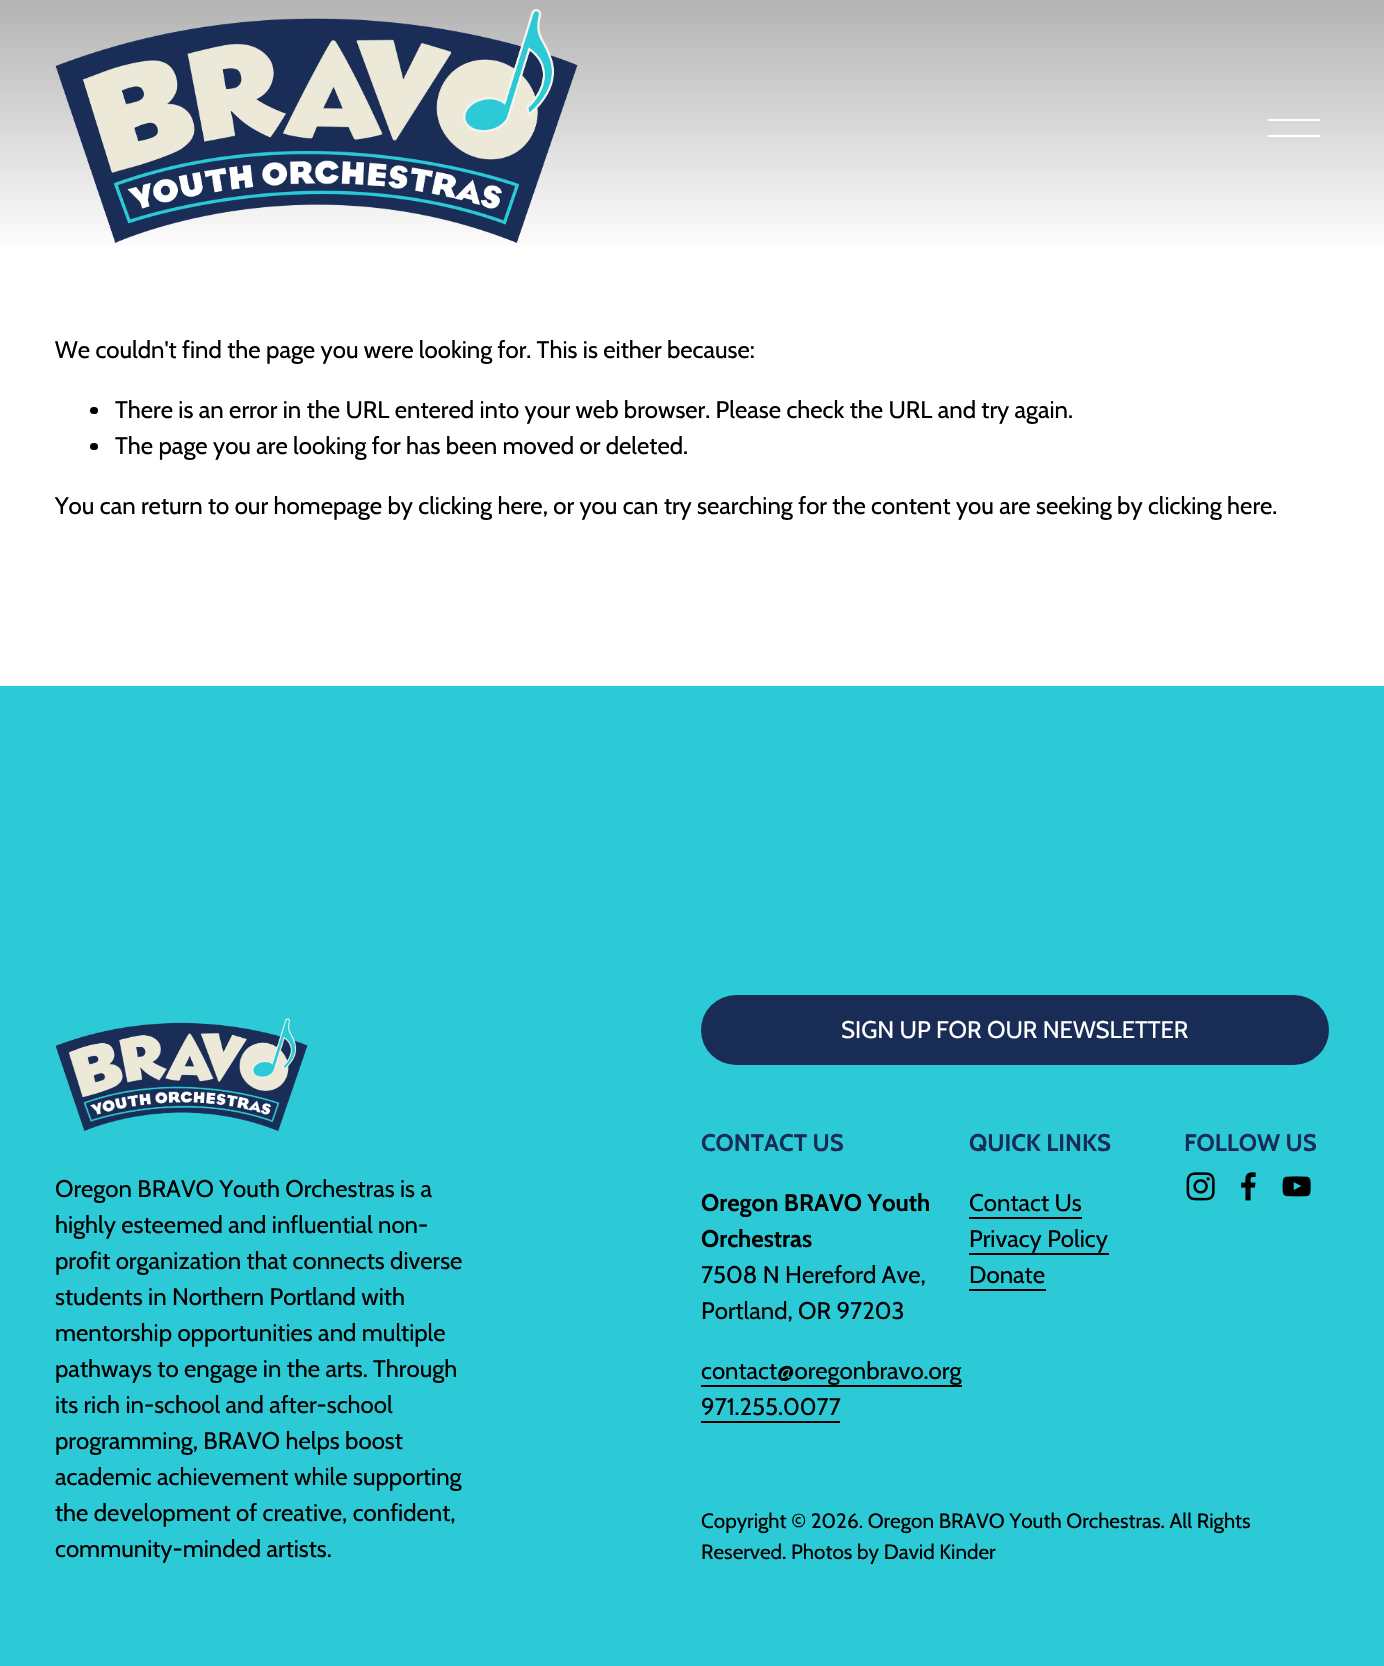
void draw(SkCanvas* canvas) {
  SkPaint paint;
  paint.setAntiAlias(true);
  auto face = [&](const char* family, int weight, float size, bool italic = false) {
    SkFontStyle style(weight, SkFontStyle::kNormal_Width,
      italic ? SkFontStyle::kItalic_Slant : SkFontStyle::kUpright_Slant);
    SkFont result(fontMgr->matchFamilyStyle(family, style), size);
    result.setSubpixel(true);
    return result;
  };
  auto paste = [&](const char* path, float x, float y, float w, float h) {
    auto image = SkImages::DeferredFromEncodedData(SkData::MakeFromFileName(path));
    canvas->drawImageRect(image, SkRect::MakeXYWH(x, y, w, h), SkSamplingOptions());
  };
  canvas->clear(0xffffffff);
  {
    const SkColor colors[] = {0xffb3b3b3, 0xffffffff};
    const float stops[] = {0, 1};
    const SkPoint ends[] = {{692, 0}, {692, 254}};
    paint.setShader(SkGradientShader::MakeLinear(ends, colors, stops, 2, SkTileMode::kClamp));
    paint.setAlpha(255);
  }
  canvas->drawRect(SkRect::MakeXYWH(0, 0, 1384, 246), paint);
  paste("img/1.png", 55, 9, 523, 235);
  paint.setShader(nullptr);
  paint.setColor(0xffffffff);
  canvas->drawRect(SkRect::MakeXYWH(1268, 119, 52, 2), paint);
  canvas->drawRect(SkRect::MakeXYWH(1268, 135, 52, 2), paint);
  paint.setColor(0xff000000);
  canvas->drawRoundRect(SkRect::MakeXYWH(90, 407, 8, 7), 3.5f, 3.5f, paint);
  canvas->drawRoundRect(SkRect::MakeXYWH(90, 443, 8, 7), 3.5f, 3.5f, paint);
  paint.setColor(0xff2bcad6);
  canvas->drawRect(SkRect::MakeXYWH(0, 686, 1384, 980), paint);
  paste("img/2.png", 55, 1018, 253, 113);
  paint.setColor(0xff182c56);
  canvas->drawRoundRect(SkRect::MakeXYWH(701, 995, 628, 70), 35, 35, paint);
  {
    const struct { float x, y, w, h; SkColor color; } items[] = {
      {701, 1385, 261, 2, 0xff000000},
      {701, 1421, 139, 2, 0xff000000},
      {969, 1217, 113, 2, 0xff000000},
      {969, 1253, 140, 2, 0xff000000},
      {969, 1289, 77, 2, 0xff000000},
    };
    for (auto [x, y, w, h, color] : items) {
      paint.setColor(color);
      canvas->drawRect(SkRect::MakeXYWH(x, y, w, h), paint);
    }
  }
  paste("img/3.png", 1186, 1172, 29, 29);
  paste("img/4.png", 1241, 1172, 15, 29);
  paste("img/5.png", 1282, 1176, 29, 21);
  auto f0 = face("Cabin", 400, 24);
  {
    const struct { const char* s; float x, y; } items[] = {
      {"We couldn't find the page you were looking for. This is either because:", 55, 358},
      {"There is an error in the URL entered into your web browser. Please check the URL and try again.", 115, 418},
      {"The page you are looking for has been moved or deleted.", 115, 454},
      {"You can return to our homepage by clicking here, or you can try searching for the content you are seeking by clicking here.", 55, 514},
    };
    for (auto [s, x, y] : items) {
      canvas->drawString(s, x, y, f0, paint);
    }
  }
  paint.setColor(0xffffffff);
  canvas->drawString("SIGN UP FOR OUR NEWSLETTER", 841, 1038, f0, paint);
  auto f1 = face("Cabin", 700, 24);
  paint.setColor(0xff182c56);
  canvas->drawString("CONTACT US", 701, 1151, f1, paint);
  paint.setColor(0xff000000);
  canvas->drawString("Oregon BRAVO Youth", 701, 1211, f1, paint);
  canvas->drawString("Orchestras", 701, 1247, f1, paint);
  {
    const struct { const char* s; float x, y; } items[] = {
      {"7508 N Hereford Ave,", 701, 1283},
      {"Portland, OR 97203", 701, 1319},
      {"contact@oregonbravo.org", 701, 1379},
      {"971.255.0077", 701, 1415},
    };
    for (auto [s, x, y] : items) {
      canvas->drawString(s, x, y, f0, paint);
    }
  }
  paint.setColor(0xff182c56);
  canvas->drawString("QUICK LINKS", 969, 1151, f1, paint);
  paint.setColor(0xff000000);
  {
    const struct { const char* s; float x, y; } items[] = {
      {"Contact Us", 969, 1211},
      {"Privacy Policy", 969, 1247},
      {"Donate", 969, 1283},
    };
    for (auto [s, x, y] : items) {
      canvas->drawString(s, x, y, f0, paint);
    }
  }
  paint.setColor(0xff182c56);
  canvas->drawString("FOLLOW US", 1184, 1151, f1, paint);
  paint.setColor(0xff000000);
  {
    const struct { const char* s; float x, y; } items[] = {
      {"Oregon BRAVO Youth Orchestras is a", 55, 1197},
      {"highly esteemed and influential non-", 55, 1233},
      {"profit organization that connects diverse", 55, 1269},
      {"students in Northern Portland with", 55, 1305},
      {"mentorship opportunities and multiple", 55, 1341},
      {"pathways to engage in the arts. Through", 55, 1377},
      {"its rich in-school and after-school", 55, 1413},
      {"programming, BRAVO helps boost", 55, 1449},
      {"academic achievement while supporting", 55, 1485},
      {"the development of creative, confident,", 55, 1521},
      {"community-minded artists.", 55, 1557},
    };
    for (auto [s, x, y] : items) {
      canvas->drawString(s, x, y, f0, paint);
    }
  }
  auto f2 = face("Cabin", 400, 20.7f);
  canvas->drawString("Copyright © 2026. Oregon BRAVO Youth Orchestras. All Rights", 701, 1528, f2, paint);
  canvas->drawString("Reserved. Photos by David Kinder", 701, 1559, f2, paint);
}
